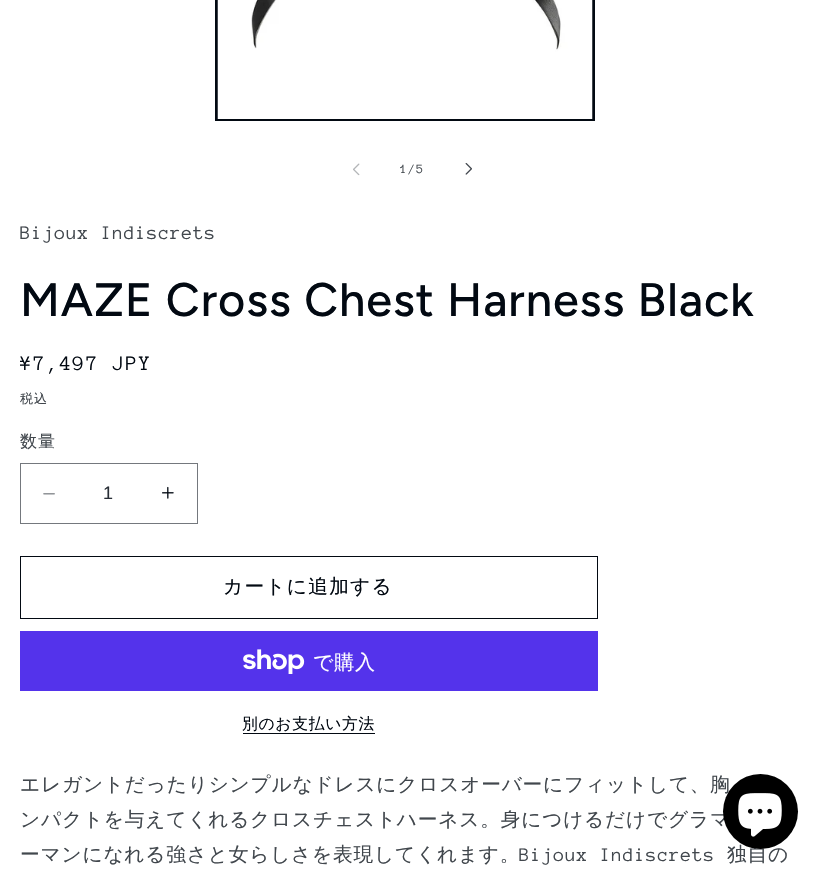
void draw(SkCanvas* canvas) {
  SkPaint paint;
  paint.setAntiAlias(true);
  auto face = [&](const char* family, int weight, float size, bool italic = false) {
    SkFontStyle style(weight, SkFontStyle::kNormal_Width,
      italic ? SkFontStyle::kItalic_Slant : SkFontStyle::kUpright_Slant);
    SkFont result(fontMgr->matchFamilyStyle(family, style), size);
    result.setSubpixel(true);
    return result;
  };
  auto writeSpaced = [&](const char* s, float x, float y, const SkFont& font, const SkPaint& ink, float letter, float word) {
    std::vector<SkGlyphID> glyphs(font.countText(s, strlen(s), SkTextEncoding::kUTF8));
    std::vector<float> xs(glyphs.size());
    font.textToGlyphs(s, strlen(s), SkTextEncoding::kUTF8, glyphs);
    font.getXPos(glyphs, xs, x);
    float extra = 0;
    for (size_t i = 0; i < glyphs.size(); i++) {
      xs[i] += extra;
      extra += letter + word * (glyphs[i] == font.unicharToGlyph(' '));
    }
    canvas->drawTextBlob(SkTextBlob::MakeFromPosHGlyphs(glyphs, xs, y, font), 0, 0, ink);
  };
  auto paste = [&](const char* path, float x, float y, float w, float h) {
    auto image = SkImages::DeferredFromEncodedData(SkData::MakeFromFileName(path));
    canvas->drawImageRect(image, SkRect::MakeXYWH(x, y, w, h), SkSamplingOptions());
  };
  canvas->clear(0xffffffff);
  paint.setStroke(true);
  paint.setStrokeWidth(3);
  paint.setColor(0xff020912);
  canvas->drawRect(SkRect::MakeXYWH(216.5f, -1.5f, 377, 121), paint);
  paste("img/1.png", 217, 0, 376, 119);
  paste("img/2.png", 353, 163, 7, 13);
  paste("img/3.png", 465, 163, 7, 12);
  paste("img/4.png", 43, 493, 12, 2);
  paste("img/5.png", 162, 486, 12, 13);
  paint.setStrokeWidth(1);
  paint.setColor(0xff74787d);
  canvas->drawRect(SkRect::MakeXYWH(20.5f, 463.5f, 177, 60), paint);
  paint.setColor(0xff020912);
  canvas->drawRect(SkRect::MakeXYWH(20.5f, 556.5f, 577, 62), paint);
  paint.setStroke(false);
  paint.setColor(0xff5433eb);
  canvas->drawRect(SkRect::MakeXYWH(20, 631, 578, 60), paint);
  paste("img/6.png", 243, 649, 62, 25);
  paint.setColor(0xff020912);
  canvas->drawRect(SkRect::MakeXYWH(243, 733, 132, 1), paint);
  auto f0 = face("Anonymous Pro", 400, 13);
  paint.setColor(0xff41474d);
  writeSpaced("1/5", 400, 173, f0, paint, 1, 0);
  auto f1 = face("Anonymous Pro", 400, 19.7f);
  writeSpaced("Bijoux Indiscrets", 20, 239, f1, paint, 0.8f, 0);
  auto f2 = face("Figtree", 500, 46.9f);
  paint.setColor(0xff020912);
  writeSpaced("MAZE Cross Chest Harness Black", 20, 316, f2, paint, 0.95f, 0);
  auto f3 = face("Anonymous Pro", 400, 21);
  writeSpaced("¥7,497 JPY", 20, 370, f3, paint, 1.75f, 0);
  auto f4 = face("WenQuanYi Zen Hei", 500, 13);
  paint.setColor(0xff41474d);
  writeSpaced("税込", 20, 403, f4, paint, 1, 0);
  auto f5 = face("WenQuanYi Zen Hei", 500, 17);
  writeSpaced("数量", 20, 447, f5, paint, 1, 0);
  auto f6 = face("Liberation Sans", 400, 18);
  paint.setColor(0xff282e36);
  canvas->drawString("1", 103, 499, f6, paint);
  auto f7 = face("WenQuanYi Zen Hei", 500, 19.7f);
  paint.setColor(0xff020912);
  writeSpaced("カートに追加する", 223, 593, f7, paint, 1.25f, 0);
  auto f8 = face("WenQuanYi Zen Hei", 500, 20);
  paint.setColor(0xffffffff);
  writeSpaced("で購入", 313, 669, f8, paint, 0.8f, 0);
  auto f9 = face("WenQuanYi Zen Hei", 500, 15.75f);
  paint.setColor(0xff020912);
  writeSpaced("別のお支払い方法", 242, 729, f9, paint, 0.75f, 0);
  paint.setColor(0xff41474d);
  {
    const struct { const char* s; float x, y; } items[] = {
      {"エレガントだったりシンプルなドレスにクロスオーバーにフィットして、胸", 20, 791},
      {"ンパクトを与えてくれるクロスチェストハーネス。身につけるだけでグラマ", 20, 826},
      {"ーマンになれる強さと女らしさを表現してくれます。", 20, 861},
    };
    for (auto [s, x, y] : items) {
      writeSpaced(s, x, y, f7, paint, 0.8f, 0);
    }
  }
  writeSpaced("Bijoux Indiscrets", 519, 861, f1, paint, 0.8f, 0);
  writeSpaced("独自の", 727, 861, f7, paint, 0.8f, 0);
  paint.setColor(0xff000000);
  canvas->drawCircle(760.5f, 811.5f, 37.5f, paint);
  paste("img/7.png", 738, 793, 44, 44);
}
